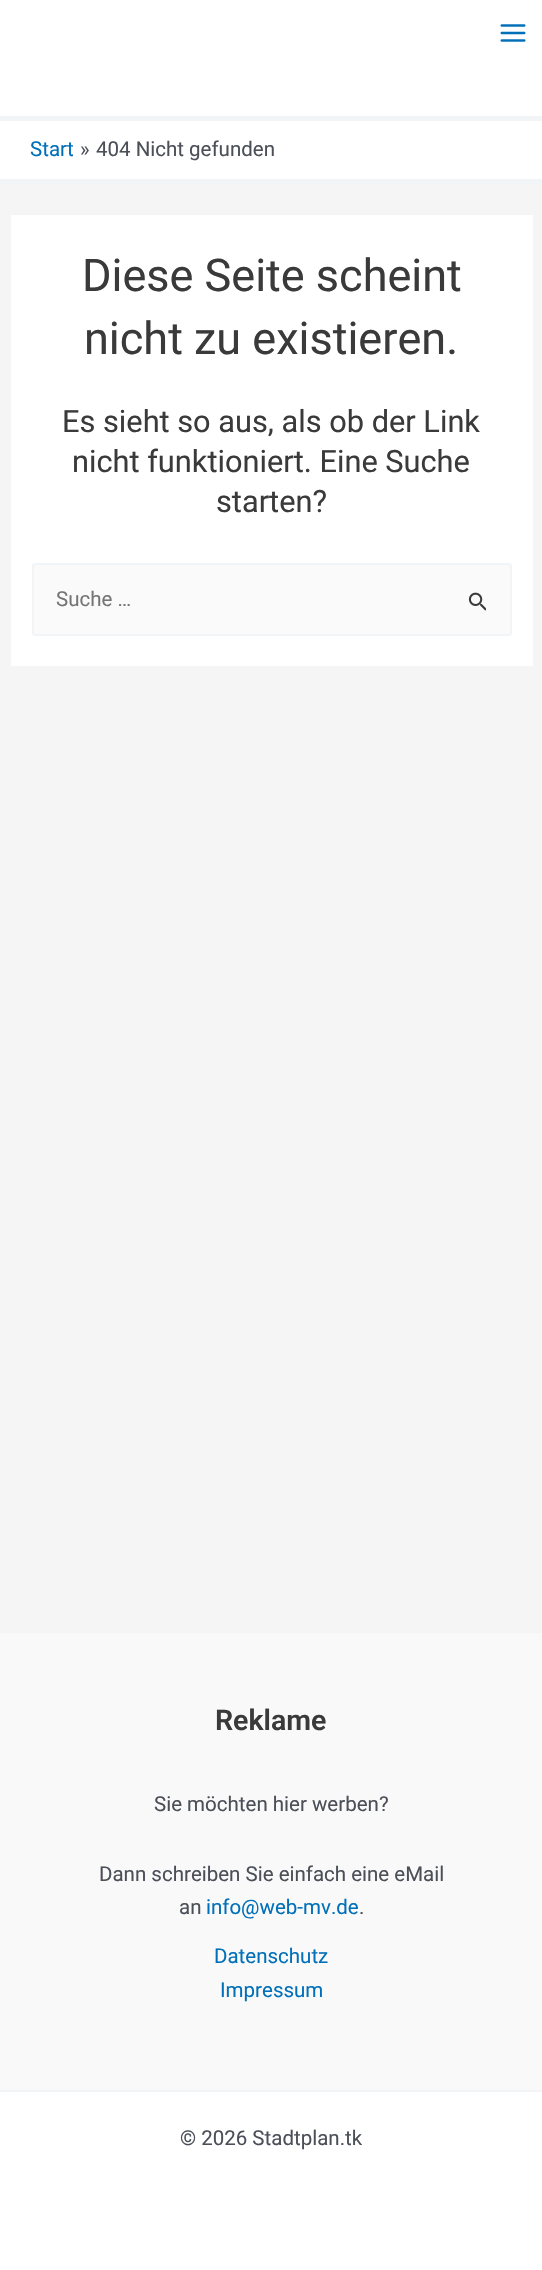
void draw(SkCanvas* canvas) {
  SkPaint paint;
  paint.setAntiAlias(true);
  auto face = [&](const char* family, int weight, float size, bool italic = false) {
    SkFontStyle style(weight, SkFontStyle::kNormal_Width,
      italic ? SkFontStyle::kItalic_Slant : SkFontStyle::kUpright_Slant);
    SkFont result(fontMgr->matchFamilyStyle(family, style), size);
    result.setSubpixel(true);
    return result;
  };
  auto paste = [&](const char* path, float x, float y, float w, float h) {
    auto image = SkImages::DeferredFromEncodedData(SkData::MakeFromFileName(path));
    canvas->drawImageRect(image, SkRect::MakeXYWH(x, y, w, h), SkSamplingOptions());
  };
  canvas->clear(0xfff5f5f5);
  paint.setColor(0xffffffff);
  canvas->drawRect(SkRect::MakeXYWH(0, 0, 542, 116), paint);
  paint.setColor(0xfff2f5f7);
  canvas->drawRect(SkRect::MakeXYWH(0, 116, 542, 5), paint);
  paste("img/1.png", 500, 24, 26, 18);
  {
    const struct { float x, y, w, h; SkColor color; } items[] = {
      {0, 121, 542, 58, 0xffffffff},
      {0, 179, 542, 5, 0xfff2f5f7},
      {11, 215, 522, 451, 0xffffffff},
    };
    for (auto [x, y, w, h, color] : items) {
      paint.setColor(color);
      canvas->drawRect(SkRect::MakeXYWH(x, y, w, h), paint);
    }
  }
  paint.setColor(0xfffafafa);
  canvas->drawRoundRect(SkRect::MakeXYWH(33, 564, 478, 71), 2, 2, paint);
  paint.setStroke(true);
  paint.setStrokeWidth(2);
  paint.setColor(0xfff2f5f7);
  canvas->drawRoundRect(SkRect::MakeXYWH(33, 564, 478, 71), 2, 2, paint);
  paste("img/2.png", 468, 592, 18, 19);
  paint.setStroke(false);
  {
    const struct { float x, y, w, h; SkColor color; } items[] = {
      {0, 1633, 542, 457, 0xfff9f9f9},
      {0, 1631, 542, 2, 0xfff2f5f7},
      {0, 2092, 542, 178, 0xffffffff},
      {0, 2090, 542, 2, 0xfff2f5f7},
    };
    for (auto [x, y, w, h, color] : items) {
      paint.setColor(color);
      canvas->drawRect(SkRect::MakeXYWH(x, y, w, h), paint);
    }
  }
  auto f0 = face("Roboto", 400, 20.5f);
  paint.setColor(0xff0170b9);
  canvas->drawString("Start", 30, 156, f0, paint);
  paint.setColor(0xff4b4f58);
  canvas->drawString("»", 80, 156, f0, paint);
  canvas->drawString("404 Nicht gefunden", 96, 156, f0, paint);
  auto f1 = face("Roboto", 400, 45);
  paint.setColor(0xff3a3a3a);
  canvas->drawString("Diese Seite scheint", 82, 291, f1, paint);
  canvas->drawString("nicht zu existieren.", 84, 354, f1, paint);
  auto f2 = face("Roboto", 400, 30.75f);
  {
    const struct { const char* s; float x, y; } items[] = {
      {"Es sieht so aus, als ob der Link", 62, 432},
      {"nicht funktioniert. Eine Suche", 72, 472},
      {"starten?", 216, 512},
    };
    for (auto [s, x, y] : items) {
      canvas->drawString(s, x, y, f2, paint);
    }
  }
  paint.setColor(0xff757575);
  canvas->drawString("Suche …", 56, 606, f0, paint);
  auto f3 = face("Roboto", 600, 28.5f);
  paint.setColor(0xff3a3a3a);
  canvas->drawString("Reklame", 215, 1730, f3, paint);
  paint.setColor(0xff4b4f58);
  {
    const struct { const char* s; float x, y; } items[] = {
      {"Sie möchten hier werben?", 154, 1811},
      {"Dann schreiben Sie einfach eine eMail", 99, 1881},
      {"an", 179, 1914},
    };
    for (auto [s, x, y] : items) {
      canvas->drawString(s, x, y, f0, paint);
    }
  }
  paint.setColor(0xff0170b9);
  canvas->drawString("info@web-mv.de", 206, 1914, f0, paint);
  paint.setColor(0xff4b4f58);
  canvas->drawString(".", 359, 1914, f0, paint);
  paint.setColor(0xff0170b9);
  canvas->drawString("Datenschutz", 214, 1963, f0, paint);
  canvas->drawString("Impressum", 220, 1997, f0, paint);
  paint.setColor(0xff4b4f58);
  canvas->drawString("© 2026 Stadtplan.tk", 180, 2145, f0, paint);
}
